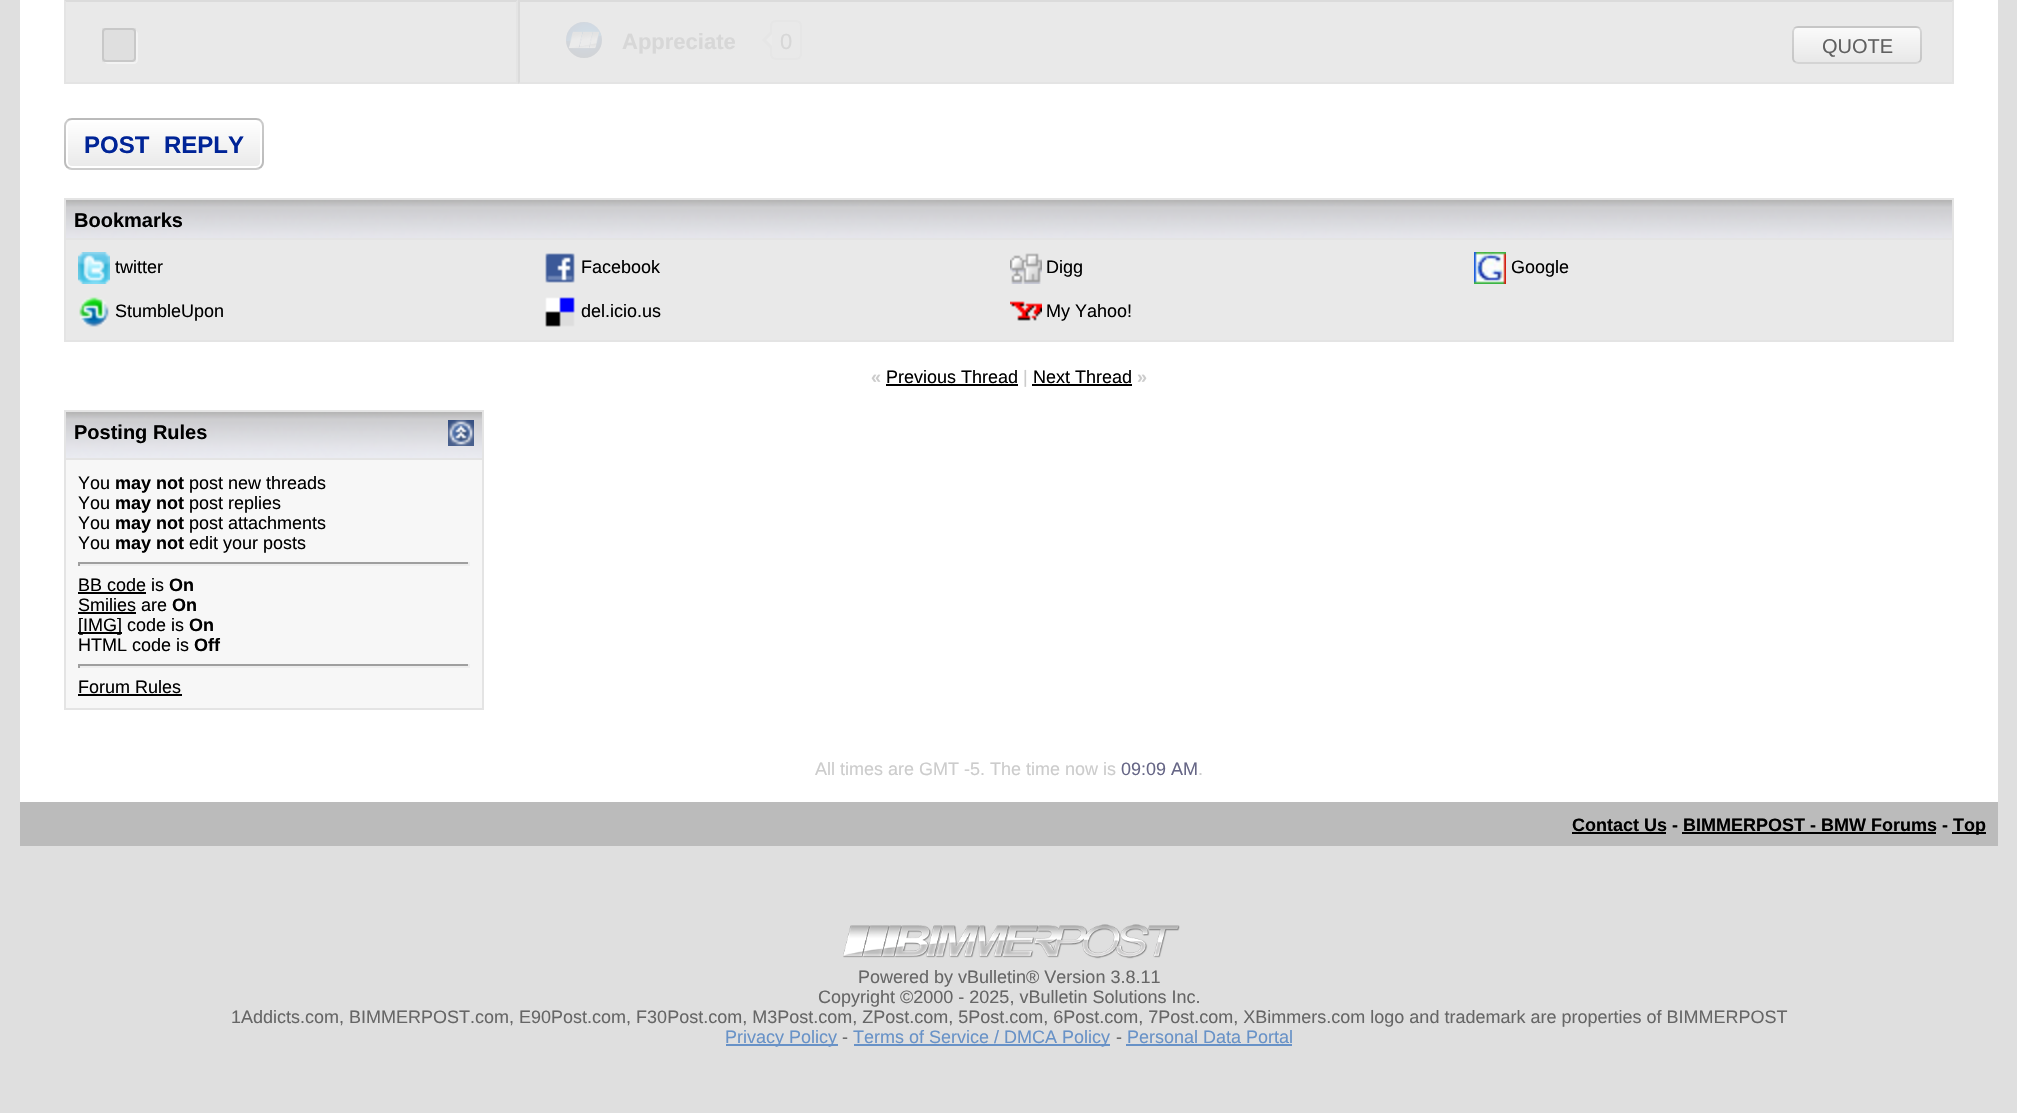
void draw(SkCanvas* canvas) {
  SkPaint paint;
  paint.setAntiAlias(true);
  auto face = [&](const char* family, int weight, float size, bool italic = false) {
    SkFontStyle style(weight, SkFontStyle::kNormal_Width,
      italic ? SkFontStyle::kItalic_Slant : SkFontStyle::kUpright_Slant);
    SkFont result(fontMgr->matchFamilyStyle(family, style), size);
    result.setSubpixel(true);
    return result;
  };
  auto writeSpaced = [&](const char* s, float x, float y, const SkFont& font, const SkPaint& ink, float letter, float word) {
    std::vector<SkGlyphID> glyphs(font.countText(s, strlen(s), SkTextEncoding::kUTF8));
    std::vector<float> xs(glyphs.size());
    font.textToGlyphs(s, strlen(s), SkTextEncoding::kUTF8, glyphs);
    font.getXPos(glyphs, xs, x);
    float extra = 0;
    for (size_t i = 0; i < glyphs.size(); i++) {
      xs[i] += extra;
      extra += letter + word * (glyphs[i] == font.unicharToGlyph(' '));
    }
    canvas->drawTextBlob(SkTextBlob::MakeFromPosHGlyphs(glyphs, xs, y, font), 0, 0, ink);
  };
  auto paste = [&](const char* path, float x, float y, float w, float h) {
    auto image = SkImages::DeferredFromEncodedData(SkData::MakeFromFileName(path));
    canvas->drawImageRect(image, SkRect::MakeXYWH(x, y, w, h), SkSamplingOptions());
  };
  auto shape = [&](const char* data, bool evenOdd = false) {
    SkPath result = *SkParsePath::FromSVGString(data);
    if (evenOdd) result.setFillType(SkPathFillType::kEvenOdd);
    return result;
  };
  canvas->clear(0xffdfdfdf);
  paint.setColor(0xffffffff);
  canvas->drawRect(SkRect::MakeXYWH(20, 0, 1978, 802), paint);
  paint.setColor(0xffe9e9e9);
  canvas->drawRect(SkRect::MakeXYWH(64, 0, 454, 82), paint);
  paint.setColor(0xffdbdbdb);
  canvas->drawPath(shape("M64 0H518L516 2H66Z"), paint);
  paint.setColor(0xffe4e4e4);
  canvas->drawPath(shape("M518 0V84L516 82V2Z"), paint);
  canvas->drawRect(SkRect::MakeXYWH(64, 82, 454, 2), paint);
  canvas->drawPath(shape("M64 84V0L66 2V82Z"), paint);
  paint.setColor(0xfff3f3f3);
  canvas->drawPath(shape("M104.5 61.5C105 63 106.5 64 108 64H134C136 64 138 62 138 60V34C138 32.5 137 31 135.5 30.5L136 32V58C136 60 134 62 132 62H106Z"), paint);
  paint.setColor(0x0a000000);
  canvas->drawRect(SkRect::MakeXYWH(102, 28, 34, 34), paint);
  paint.setStroke(true);
  paint.setStrokeWidth(2);
  paint.setColor(0x1a000000);
  canvas->drawRoundRect(SkRect::MakeXYWH(103, 29, 32, 32), 3, 3, paint);
  paint.setStroke(false);
  paint.setColor(0xffe9e9e9);
  canvas->drawRect(SkRect::MakeXYWH(518, 0, 1436, 84), paint);
  paint.setColor(0xffdbdbdb);
  canvas->drawPath(shape("M518 0H1954L1952 2H520Z"), paint);
  paint.setColor(0xffe4e4e4);
  canvas->drawPath(shape("M1954 0V84L1952 82V2Z"), paint);
  canvas->drawPath(shape("M1954 84H518L520 82H1952Z"), paint);
  paint.setColor(0x0f000000);
  canvas->drawPath(shape("M518 84V0L520 2V82Z"), paint);
  paste("img/1.png", 566, 22, 36, 36);
  paint.setStroke(true);
  paint.setColor(0xffe6e6e6);
  canvas->drawRoundRect(SkRect::MakeXYWH(771, 21, 30, 38), 5, 5, paint);
  paint.setStroke(false);
  canvas->drawPath(shape("M772 30V50L762 40Z"), paint);
  paint.setColor(0xffebebeb);
  canvas->drawPath(shape("M772 34V46L766 40Z"), paint);
  canvas->save();
  canvas->clipPath(shape("M1798 26H1916C1919.5 26 1922 28.5 1922 32V58C1922 61.5 1919.5 64 1916 64H1798C1794.5 64 1792 61.5 1792 58V32C1792 28.5 1794.5 26 1798 26Z"), true);
  {
    const SkColor colors[] = {0xfffafafa, 0xffe8e8e8};
    const float stops[] = {0, 1};
    const SkPoint ends[] = {{1857, 28}, {1857, 62}};
    paint.setShader(SkGradientShader::MakeLinear(ends, colors, stops, 2, SkTileMode::kClamp));
    paint.setAlpha(255);
  }
  canvas->drawRect(SkRect::MakeXYWH(1792, 28, 130, 34), paint);
  {
    const SkColor colors[] = {0xfffafafa, 0xffe8e8e8};
    const float stops[] = {0, 1};
    const SkPoint ends[] = {{1857, 62}, {1857, 96}};
    paint.setShader(SkGradientShader::MakeLinear(ends, colors, stops, 2, SkTileMode::kClamp));
    paint.setAlpha(255);
  }
  canvas->drawRect(SkRect::MakeXYWH(1792, 62, 130, 2), paint);
  canvas->restore();
  paint.setStroke(true);
  paint.setShader(nullptr);
  paint.setColor(0x26000000);
  canvas->drawRoundRect(SkRect::MakeXYWH(1793, 27, 128, 36), 5, 5, paint);
  canvas->save();
  canvas->clipPath(shape("M72 118H256C260.5 118 264 121.5 264 126V162C264 166.5 260.5 170 256 170H72C67.5 170 64 166.5 64 162V126C64 121.5 67.5 118 72 118Z"), true);
  paint.setStroke(false);
  {
    const SkColor colors[] = {0xffffffff, 0xffe9e9e9};
    const float stops[] = {0, 1};
    const SkPoint ends[] = {{164, 72}, {164, 120}};
    paint.setShader(SkGradientShader::MakeLinear(ends, colors, stops, 2, SkTileMode::kClamp));
    paint.setAlpha(255);
  }
  canvas->drawRect(SkRect::MakeXYWH(64, 118, 200, 2), paint);
  {
    const SkColor colors[] = {0xffffffff, 0xffe9e9e9};
    const float stops[] = {0, 1};
    const SkPoint ends[] = {{164, 120}, {164, 168}};
    paint.setShader(SkGradientShader::MakeLinear(ends, colors, stops, 2, SkTileMode::kClamp));
    paint.setAlpha(255);
  }
  canvas->drawRect(SkRect::MakeXYWH(64, 120, 200, 48), paint);
  canvas->restore();
  paint.setStroke(true);
  paint.setShader(nullptr);
  paint.setColor(0xffffffff);
  canvas->drawRoundRect(SkRect::MakeXYWH(67, 121, 194, 46), 5, 5, paint);
  paint.setColor(0x33000000);
  canvas->drawRoundRect(SkRect::MakeXYWH(65, 119, 198, 50), 7, 7, paint);
  paint.setStroke(false);
  paint.setColor(0xffe4e4e4);
  canvas->drawRect(SkRect::MakeXYWH(64, 198, 1890, 144), paint);
  paste("img/2.png", 66, 200, 1886, 38);
  paint.setColor(0xffe9e9e9);
  canvas->drawRect(SkRect::MakeXYWH(66, 240, 1886, 100), paint);
  paste("img/3.png", 78, 252, 32, 32);
  paste("img/4.png", 545, 253, 30, 30);
  paste("img/5.png", 1010, 253, 32, 31);
  paste("img/6.png", 1474, 252, 32, 32);
  paste("img/7.png", 79, 297, 30, 30);
  paste("img/8.png", 545, 297, 30, 30);
  paste("img/9.png", 1010, 301, 32, 20);
  {
    const struct { float x, y, w, h; SkColor color; } items[] = {
      {886, 384, 132, 2, 0xff000000},
      {1032, 384, 100, 2, 0xff000000},
      {64, 410, 420, 300, 0xffe4e4e4},
    };
    for (auto [x, y, w, h, color] : items) {
      paint.setColor(color);
      canvas->drawRect(SkRect::MakeXYWH(x, y, w, h), paint);
    }
  }
  paste("img/10.png", 66, 412, 416, 46);
  paste("img/11.png", 448, 420, 26, 26);
  {
    const struct { float x, y, w, h; SkColor color; } items[] = {
      {66, 460, 416, 248, 0xfff7f7f7},
      {78, 562, 392, 2, 0xff9f9f9f},
      {468, 562, 2, 4, 0xffeeeeee},
      {78, 564, 392, 2, 0xffeeeeee},
      {78, 562, 2, 4, 0xff9f9f9f},
      {78, 592, 68, 2, 0xff000000},
      {78, 612, 58, 2, 0xff000000},
      {78, 632, 44, 2, 0xff000000},
      {78, 664, 392, 2, 0xff9f9f9f},
      {468, 664, 2, 4, 0xffeeeeee},
      {78, 666, 392, 2, 0xffeeeeee},
      {78, 664, 2, 4, 0xff9f9f9f},
      {78, 694, 104, 2, 0xff000000},
      {20, 802, 1978, 44, 0xffbbbbbb},
      {1572, 832, 94, 2, 0xff000000},
      {1682, 832, 254, 2, 0xff000000},
      {1952, 832, 34, 2, 0xff000000},
    };
    for (auto [x, y, w, h, color] : items) {
      paint.setColor(color);
      canvas->drawRect(SkRect::MakeXYWH(x, y, w, h), paint);
    }
  }
  paste("img/12.png", 843, 924, 337, 35);
  {
    const struct { float x, y, w, h; SkColor color; } items[] = {
      {726, 1044, 112, 2, 0xff6892c7},
      {854, 1044, 256, 2, 0xff6892c7},
      {1126, 1044, 166, 2, 0xff6892c7},
    };
    for (auto [x, y, w, h, color] : items) {
      paint.setColor(color);
      canvas->drawRect(SkRect::MakeXYWH(x, y, w, h), paint);
    }
  }
  auto f0 = face("Liberation Sans", 700, 22);
  paint.setColor(0xffd7d7d7);
  canvas->drawString("Appreciate", 622, 49, f0, paint);
  auto f1 = face("Liberation Sans", 400, 22);
  canvas->drawString("0", 780, 49, f1, paint);
  auto f2 = face("Liberation Sans", 400, 20);
  paint.setColor(0xff606060);
  canvas->drawString("QUOTE", 1822, 53, f2, paint);
  auto f3 = face("Liberation Sans", 700, 24);
  paint.setColor(0xff002497);
  writeSpaced("POST REPLY", 84, 153, f3, paint, 0, 8);
  auto f4 = face("Liberation Sans", 700, 20);
  paint.setColor(0xff000000);
  canvas->drawString("Bookmarks", 74, 227, f4, paint);
  auto f5 = face("Liberation Sans", 400, 18);
  {
    const struct { const char* s; float x, y; } items[] = {
      {"twitter", 115, 273},
      {"Facebook", 581, 273},
      {"Digg", 1046, 273},
      {"Google", 1511, 273},
      {"StumbleUpon", 115, 317},
      {"del.icio.us", 581, 317},
      {"My Yahoo!", 1046, 317},
    };
    for (auto [s, x, y] : items) {
      canvas->drawString(s, x, y, f5, paint);
    }
  }
  auto f6 = face("Liberation Sans", 700, 18);
  paint.setColor(0xffcccccc);
  canvas->drawString("«", 871, 383, f6, paint);
  paint.setColor(0xff000000);
  canvas->drawString("Previous Thread", 886, 383, f5, paint);
  paint.setColor(0xffcccccc);
  canvas->drawString("|", 1023, 383, f5, paint);
  paint.setColor(0xff000000);
  canvas->drawString("Next Thread", 1033, 383, f5, paint);
  paint.setColor(0xffcccccc);
  canvas->drawString("»", 1137, 383, f6, paint);
  paint.setColor(0xff000000);
  canvas->drawString("Posting Rules", 74, 439, f4, paint);
  canvas->drawString("You", 78, 489, f5, paint);
  canvas->drawString("may not", 115, 489, f6, paint);
  canvas->drawString("post new threads", 189, 489, f5, paint);
  canvas->drawString("You", 78, 509, f5, paint);
  canvas->drawString("may not", 115, 509, f6, paint);
  canvas->drawString("post replies", 189, 509, f5, paint);
  canvas->drawString("You", 78, 529, f5, paint);
  canvas->drawString("may not", 115, 529, f6, paint);
  canvas->drawString("post attachments", 189, 529, f5, paint);
  canvas->drawString("You", 78, 549, f5, paint);
  canvas->drawString("may not", 115, 549, f6, paint);
  canvas->drawString("edit your posts", 189, 549, f5, paint);
  canvas->drawString("BB code is", 78, 591, f5, paint);
  canvas->drawString("On", 169, 591, f6, paint);
  canvas->drawString("Smilies are", 78, 611, f5, paint);
  canvas->drawString("On", 172, 611, f6, paint);
  canvas->drawString("[IMG] code is", 78, 631, f5, paint);
  canvas->drawString("On", 189, 631, f6, paint);
  canvas->drawString("HTML code is", 78, 651, f5, paint);
  canvas->drawString("Off", 194, 651, f6, paint);
  canvas->drawString("Forum Rules", 78, 693, f5, paint);
  paint.setColor(0xffcccccc);
  canvas->drawString("All times are GMT -5. The time now is", 815, 775, f5, paint);
  paint.setColor(0xff666686);
  canvas->drawString("09:09 AM", 1121, 775, f5, paint);
  paint.setColor(0xffcccccc);
  canvas->drawString(".", 1198, 775, f5, paint);
  paint.setColor(0xff000000);
  canvas->drawString("Contact Us - BIMMERPOST - BMW Forums -", 1572, 831, f6, paint);
  canvas->drawString("Top", 1953, 831, f6, paint);
  paint.setColor(0xff666666);
  {
    const struct { const char* s; float x, y; } items[] = {
      {"Powered by vBulletin® Version 3.8.11", 858, 983},
      {"Copyright ©2000 - 2025, vBulletin Solutions Inc.", 818, 1003},
      {"1Addicts.com, BIMMERPOST.com, E90Post.com, F30Post.com, M3Post.com, ZPost.com, 5Post.com, 6Post.com, 7Post.com, XBimmers.com logo and trademark are properties of BIMMERPOST", 231, 1023},
    };
    for (auto [s, x, y] : items) {
      canvas->drawString(s, x, y, f5, paint);
    }
  }
  paint.setColor(0xff6892c7);
  canvas->drawString("Privacy Policy", 725, 1043, f5, paint);
  paint.setColor(0xff666666);
  canvas->drawString("-", 842, 1043, f5, paint);
  paint.setColor(0xff6892c7);
  canvas->drawString("Terms of Service / DMCA Policy", 853, 1043, f5, paint);
  paint.setColor(0xff666666);
  canvas->drawString("-", 1116, 1043, f5, paint);
  paint.setColor(0xff6892c7);
  canvas->drawString("Personal Data Portal", 1127, 1043, f5, paint);
}
